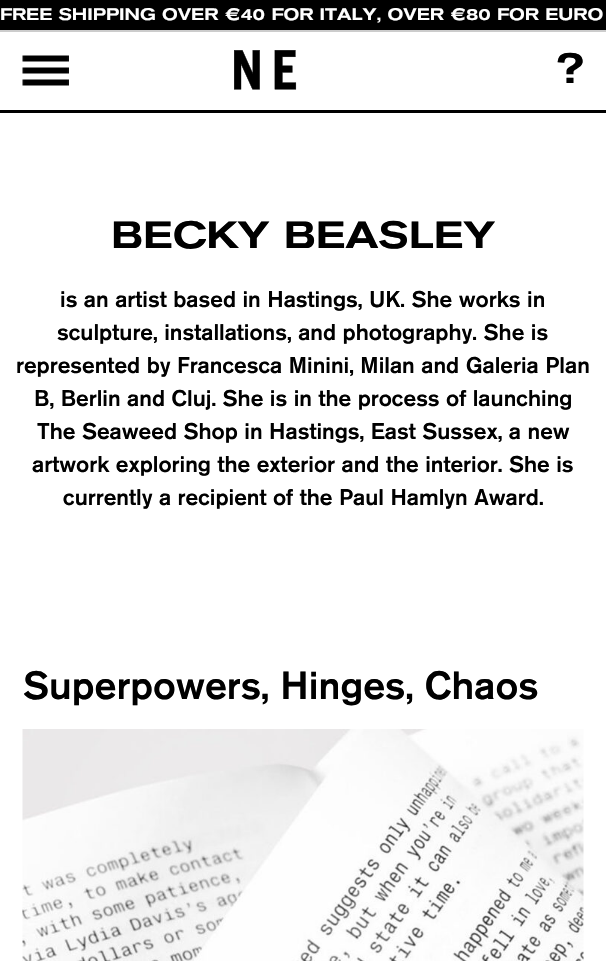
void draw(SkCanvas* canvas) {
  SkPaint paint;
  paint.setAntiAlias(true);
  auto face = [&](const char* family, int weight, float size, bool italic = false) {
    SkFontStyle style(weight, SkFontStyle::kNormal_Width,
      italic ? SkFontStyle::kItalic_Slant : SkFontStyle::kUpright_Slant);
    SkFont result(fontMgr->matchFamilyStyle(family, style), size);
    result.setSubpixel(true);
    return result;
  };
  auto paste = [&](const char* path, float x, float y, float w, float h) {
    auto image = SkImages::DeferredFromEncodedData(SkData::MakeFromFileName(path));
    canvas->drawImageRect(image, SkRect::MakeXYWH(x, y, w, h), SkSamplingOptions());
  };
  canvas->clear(0xffffffff);
  {
    const struct { float x, y, w, h; SkColor color; } items[] = {
      {0, 110, 606, 3, 0xff000000},
      {0, 0, 606, 30, 0xff000000},
      {0, 30, 606, 2, 0xffcccccc},
    };
    for (auto [x, y, w, h, color] : items) {
      paint.setColor(color);
      canvas->drawRect(SkRect::MakeXYWH(x, y, w, h), paint);
    }
  }
  paste("img/1.png", 22, 55, 47, 31);
  paste("img/2.png", 234, 50, 63, 40);
  paste("img/3.png", 22, 729, 562, 232);
  auto f0 = face("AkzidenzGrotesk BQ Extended", 500, 16.5f);
  paint.setColor(0xffffffff);
  canvas->drawString("FREE SHIPPING OVER €40 FOR ITALY, OVER €80 FOR EURO", 0, 20, f0, paint);
  auto f1 = face("AkzidenzGrotesk BQ Extended", 500, 42);
  paint.setColor(0xff000000);
  canvas->drawString("?", 555, 83, f1, paint);
  auto f2 = face("AkzidenzGrotesk BQ Extended", 500, 37.5f);
  canvas->drawString("BECKY BEASLEY", 111, 248, f2, paint);
  auto f3 = face("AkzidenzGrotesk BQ", 500, 22.5f);
  {
    const struct { const char* s; float x, y; } items[] = {
      {"is an artist based in Hastings, UK. She works in", 60, 307},
      {"sculpture, installations, and photography. She is", 57, 340},
      {"represented by Francesca Minini, Milan and Galeria Plan", 16, 373},
      {"B, Berlin and Cluj. She is in the process of launching", 34, 406},
      {"The Seaweed Shop in Hastings, East Sussex, a new", 37, 439},
      {"artwork exploring the exterior and the interior. She is", 32, 472},
      {"currently a recipient of the Paul Hamlyn Award.", 63, 505},
    };
    for (auto [s, x, y] : items) {
      canvas->drawString(s, x, y, f3, paint);
    }
  }
  auto f4 = face("AkzidenzGrotesk BQ", 500, 39);
  canvas->drawString("Superpowers, Hinges, Chaos", 23, 699, f4, paint);
}
